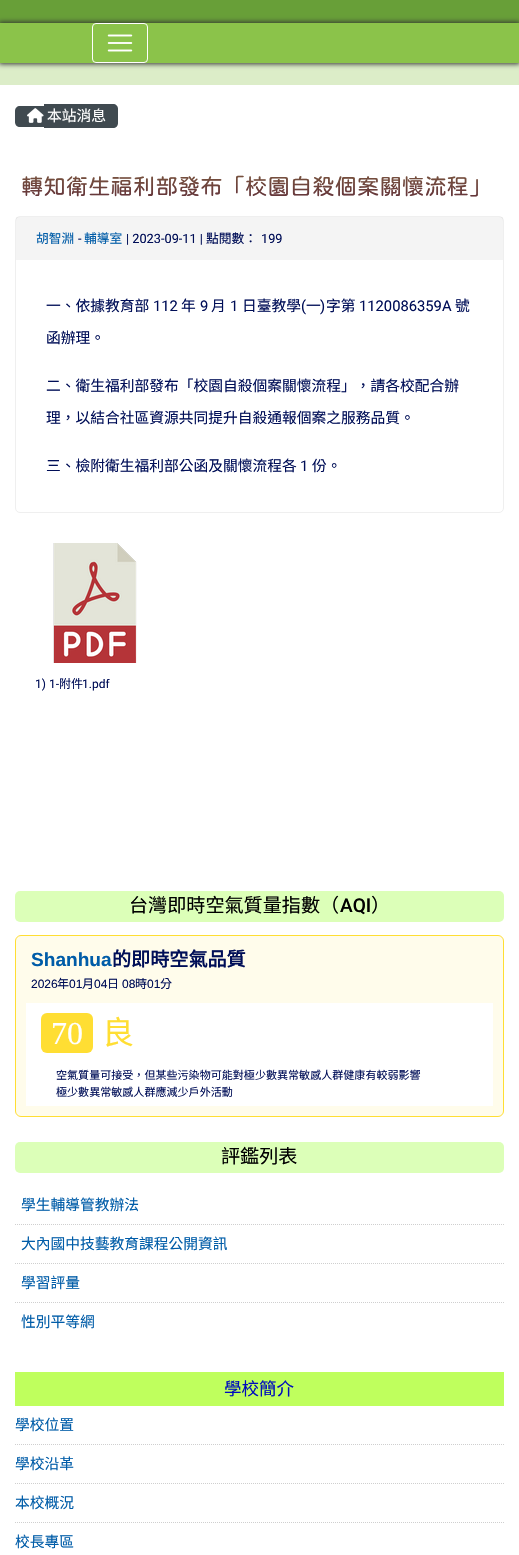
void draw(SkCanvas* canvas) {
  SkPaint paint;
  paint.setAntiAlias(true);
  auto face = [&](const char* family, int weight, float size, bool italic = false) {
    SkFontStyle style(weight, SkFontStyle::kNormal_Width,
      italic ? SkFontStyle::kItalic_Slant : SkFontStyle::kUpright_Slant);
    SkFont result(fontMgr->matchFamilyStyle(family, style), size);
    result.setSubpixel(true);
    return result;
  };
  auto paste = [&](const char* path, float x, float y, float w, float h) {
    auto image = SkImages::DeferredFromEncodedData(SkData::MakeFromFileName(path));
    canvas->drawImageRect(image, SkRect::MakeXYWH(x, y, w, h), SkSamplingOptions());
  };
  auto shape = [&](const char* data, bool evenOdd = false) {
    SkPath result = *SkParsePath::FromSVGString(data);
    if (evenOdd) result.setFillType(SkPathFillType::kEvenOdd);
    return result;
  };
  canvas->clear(0xffdcedc8);
  paint.setColor(0xff689f38);
  canvas->drawRect(SkRect::MakeXYWH(0, 0, 519, 23), paint);
  paint.setColor(0xff333333);
  paint.setMaskFilter(SkMaskFilter::MakeBlur(kNormal_SkBlurStyle, 2.5f));
  canvas->drawRect(SkRect::MakeXYWH(-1, 22, 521, 42), paint);
  paint.setMaskFilter(nullptr);
  paint.setColor(0xff8bc34a);
  canvas->drawRect(SkRect::MakeXYWH(0, 23, 519, 40), paint);
  paint.setStroke(true);
  paint.setStrokeWidth(1);
  paint.setColor(0xffffffff);
  canvas->drawRoundRect(SkRect::MakeXYWH(92.5f, 23.5f, 55, 39), 3.5f, 3.5f, paint);
  paste("img/1.png", 107, 34, 26, 18);
  paint.setStroke(false);
  canvas->drawRect(SkRect::MakeXYWH(0, 85, 519, 1470), paint);
  paint.setColor(0xff404a50);
  canvas->drawPath(shape("M20 106H44V127H20C17 127 15 125 15 122V111C15 108 17 106 20 106Z"), paint);
  canvas->drawPath(shape("M44 104H113C116 104 118 106 118 109V123C118 126 116 128 113 128H44Z"), paint);
  paste("img/2.png", 27, 108, 17, 15);
  paint.setStroke(true);
  paint.setColor(0xffefefef);
  canvas->drawRoundRect(SkRect::MakeXYWH(15.5f, 216.5f, 488, 296), 4.5f, 4.5f, paint);
  paint.setStroke(false);
  paint.setColor(0x33c8c8c8);
  canvas->drawRect(SkRect::MakeXYWH(16, 217, 487, 43), paint);
  paste("img/3.png", 53, 543, 84, 120);
  paint.setColor(0xffdcffb8);
  canvas->drawRoundRect(SkRect::MakeXYWH(15, 891, 489, 31), 5, 5, paint);
  paint.setColor(0xfffffceb);
  canvas->drawRoundRect(SkRect::MakeXYWH(15.5f, 935.5f, 488, 181), 5.5f, 5.5f, paint);
  paint.setStroke(true);
  paint.setColor(0xffffde33);
  canvas->drawRoundRect(SkRect::MakeXYWH(15.5f, 935.5f, 488, 181), 5.5f, 5.5f, paint);
  paint.setStroke(false);
  paint.setColor(0xffffffff);
  canvas->drawRect(SkRect::MakeXYWH(26, 1003, 467, 103), paint);
  paint.setColor(0xffffde33);
  canvas->drawRoundRect(SkRect::MakeXYWH(41, 1013, 52, 40), 6, 6, paint);
  paint.setColor(0xffdcffb8);
  canvas->drawRoundRect(SkRect::MakeXYWH(15, 1142, 489, 31), 5, 5, paint);
  paint.setStroke(true);
  paint.setColor(0xffcfcfcf);
  paint.setPathEffect(SkDashPathEffect::Make({{1, 1}}, 0));
  canvas->drawPath(shape("M15 1224.5H504"), paint);
  paint.setPathEffect(nullptr);
  paint.setPathEffect(SkDashPathEffect::Make({{1, 1}}, 0));
  canvas->drawPath(shape("M15 1263.5H504"), paint);
  paint.setPathEffect(nullptr);
  paint.setPathEffect(SkDashPathEffect::Make({{1, 1}}, 0));
  canvas->drawPath(shape("M15 1302.5H504"), paint);
  paint.setPathEffect(nullptr);
  paint.setStroke(false);
  paint.setColor(0xffbfff5d);
  canvas->drawRect(SkRect::MakeXYWH(15, 1372, 489, 34), paint);
  paint.setStroke(true);
  paint.setColor(0xffcfcfcf);
  paint.setPathEffect(SkDashPathEffect::Make({{1, 1}}, 0));
  canvas->drawPath(shape("M15 1444.5H504"), paint);
  paint.setPathEffect(nullptr);
  paint.setPathEffect(SkDashPathEffect::Make({{1, 1}}, 0));
  canvas->drawPath(shape("M15 1483.5H504"), paint);
  paint.setPathEffect(nullptr);
  paint.setPathEffect(SkDashPathEffect::Make({{1, 1}}, 0));
  canvas->drawPath(shape("M15 1522.5H504"), paint);
  paint.setPathEffect(nullptr);
  auto f0 = face("Noto Sans CJK TC", 400, 14.75f);
  paint.setStroke(false);
  paint.setColor(0xffffffff);
  canvas->drawString("本站消息", 47, 121, f0, paint);
  auto f1 = face("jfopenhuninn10", 400, 22.4f);
  {
    const SkColor colors[] = {0xff7e5c40, 0xff5c2938};
    const float stops[] = {0, 1};
    const SkPoint ends[] = {{260, 167}, {260, 206}};
    paint.setShader(SkGradientShader::MakeLinear(ends, colors, stops, 2, SkTileMode::kClamp));
    paint.setAlpha(255);
  }
  canvas->drawString("轉知衛生福利部發布「校園自殺個案關懷流程」", 21, 194, f1, paint);
  auto f2 = face("Noto Sans CJK TC", 400, 12.75f);
  paint.setShader(nullptr);
  paint.setColor(0xff005ca8);
  canvas->drawString("胡智淵", 36, 243, f2, paint);
  auto f3 = face("Roboto", 400, 12.75f);
  paint.setColor(0xff000e57);
  canvas->drawString("-", 78, 243, f3, paint);
  paint.setColor(0xff005ca8);
  canvas->drawString("輔導室", 84, 243, f2, paint);
  paint.setColor(0xff000e57);
  canvas->drawString("| 2023-09-11 |", 126, 243, f3, paint);
  canvas->drawString("點閱數：", 206, 243, f2, paint);
  canvas->drawString("199", 261, 243, f3, paint);
  canvas->drawString("一、依據教育部", 46, 311, f0, paint);
  auto f4 = face("Roboto", 400, 14.75f);
  canvas->drawString("112", 153, 311, f4, paint);
  canvas->drawString("年", 181, 311, f0, paint);
  canvas->drawString("9", 200, 311, f4, paint);
  canvas->drawString("月", 211, 311, f0, paint);
  canvas->drawString("1", 230, 311, f4, paint);
  canvas->drawString("日臺教學", 242, 311, f0, paint);
  canvas->drawString("(", 301, 311, f4, paint);
  canvas->drawString("一", 306, 311, f0, paint);
  canvas->drawString(")", 320, 311, f4, paint);
  canvas->drawString("字第", 326, 311, f0, paint);
  canvas->drawString("1120086359A", 359, 311, f4, paint);
  {
    const struct { const char* s; float x, y; } items[] = {
      {"號", 455, 311},
      {"函辦理。", 46, 343},
      {"二、衛生福利部發布「校園自殺個案關懷流程」，請各校配合辦", 46, 391},
      {"理，以結合社區資源共同提升自殺通報個案之服務品質。", 46, 423},
      {"三、檢附衛生福利部公函及關懷流程各", 46, 471},
    };
    for (auto [s, x, y] : items) {
      canvas->drawString(s, x, y, f0, paint);
    }
  }
  canvas->drawString("1", 300, 471, f4, paint);
  canvas->drawString("份。", 312, 471, f0, paint);
  auto f5 = face("Roboto", 400, 12);
  canvas->drawString("1) 1-", 35, 688, f5, paint);
  auto f6 = face("Noto Sans CJK TC", 400, 12);
  canvas->drawString("附件", 59, 688, f6, paint);
  canvas->drawString("1.pdf", 82, 688, f5, paint);
  auto f7 = face("Noto Sans CJK TC", 400, 19.1f);
  paint.setColor(0xff000000);
  canvas->drawString("台灣即時空氣質量指數（", 129, 912, f7, paint);
  auto f8 = face("Roboto", 500, 19.1f);
  canvas->drawString("AQI", 340, 912, f8, paint);
  canvas->drawString("）", 371, 912, f7, paint);
  auto f9 = face("Liberation Sans", 700, 19.1f);
  paint.setColor(0xff005ca8);
  canvas->drawString("Shanhua", 31, 966, f9, paint);
  auto f10 = face("Noto Sans CJK TC", 700, 19.1f);
  paint.setColor(0xff000e57);
  canvas->drawString("的即時空氣品質", 112, 966, f10, paint);
  auto f11 = face("Liberation Sans", 400, 12);
  canvas->drawString("2026", 31, 988, f11, paint);
  canvas->drawString("年", 57, 988, f6, paint);
  canvas->drawString("01", 69, 988, f11, paint);
  canvas->drawString("月", 82, 988, f6, paint);
  canvas->drawString("04", 94, 988, f11, paint);
  canvas->drawString("日", 107, 988, f6, paint);
  canvas->drawString("08", 122, 988, f11, paint);
  canvas->drawString("時", 135, 988, f6, paint);
  canvas->drawString("01", 147, 988, f11, paint);
  canvas->drawString("分", 160, 988, f6, paint);
  auto f12 = face("Liberation Serif", 400, 32);
  paint.setColor(0xffffffff);
  canvas->drawString("70", 51, 1044, f12, paint);
  auto f13 = face("Noto Sans CJK TC", 400, 32);
  paint.setColor(0xffffde33);
  canvas->drawString("良", 102, 1044, f13, paint);
  auto f14 = face("Noto Sans CJK TC", 400, 11.05f);
  paint.setColor(0xff000e57);
  canvas->drawString("空氣質量可接受，但某些污染物可能對極少數異常敏感人群健康有較弱影響", 56, 1079, f14, paint);
  canvas->drawString("極少數異常敏感人群應減少戶外活動", 56, 1096, f14, paint);
  paint.setColor(0xff000000);
  canvas->drawString("評鑑列表", 221, 1163, f7, paint);
  paint.setColor(0xff005ca8);
  {
    const struct { const char* s; float x, y; } items[] = {
      {"學生輔導管教辦法", 21, 1210},
      {"大內國中技藝教育課程公開資訊", 21, 1249},
      {"學習評量", 21, 1288},
      {"性別平等網", 21, 1327},
    };
    for (auto [s, x, y] : items) {
      canvas->drawString(s, x, y, f0, paint);
    }
  }
  auto f15 = face("Noto Sans CJK TC", 400, 17.5f);
  paint.setColor(0xff000dbc);
  canvas->drawString("學校簡介", 224, 1395, f15, paint);
  paint.setColor(0xff005ca8);
  {
    const struct { const char* s; float x, y; } items[] = {
      {"學校位置", 15, 1430},
      {"學校沿革", 15, 1469},
      {"本校概況", 15, 1508},
      {"校長專區", 15, 1547},
    };
    for (auto [s, x, y] : items) {
      canvas->drawString(s, x, y, f0, paint);
    }
  }
}
